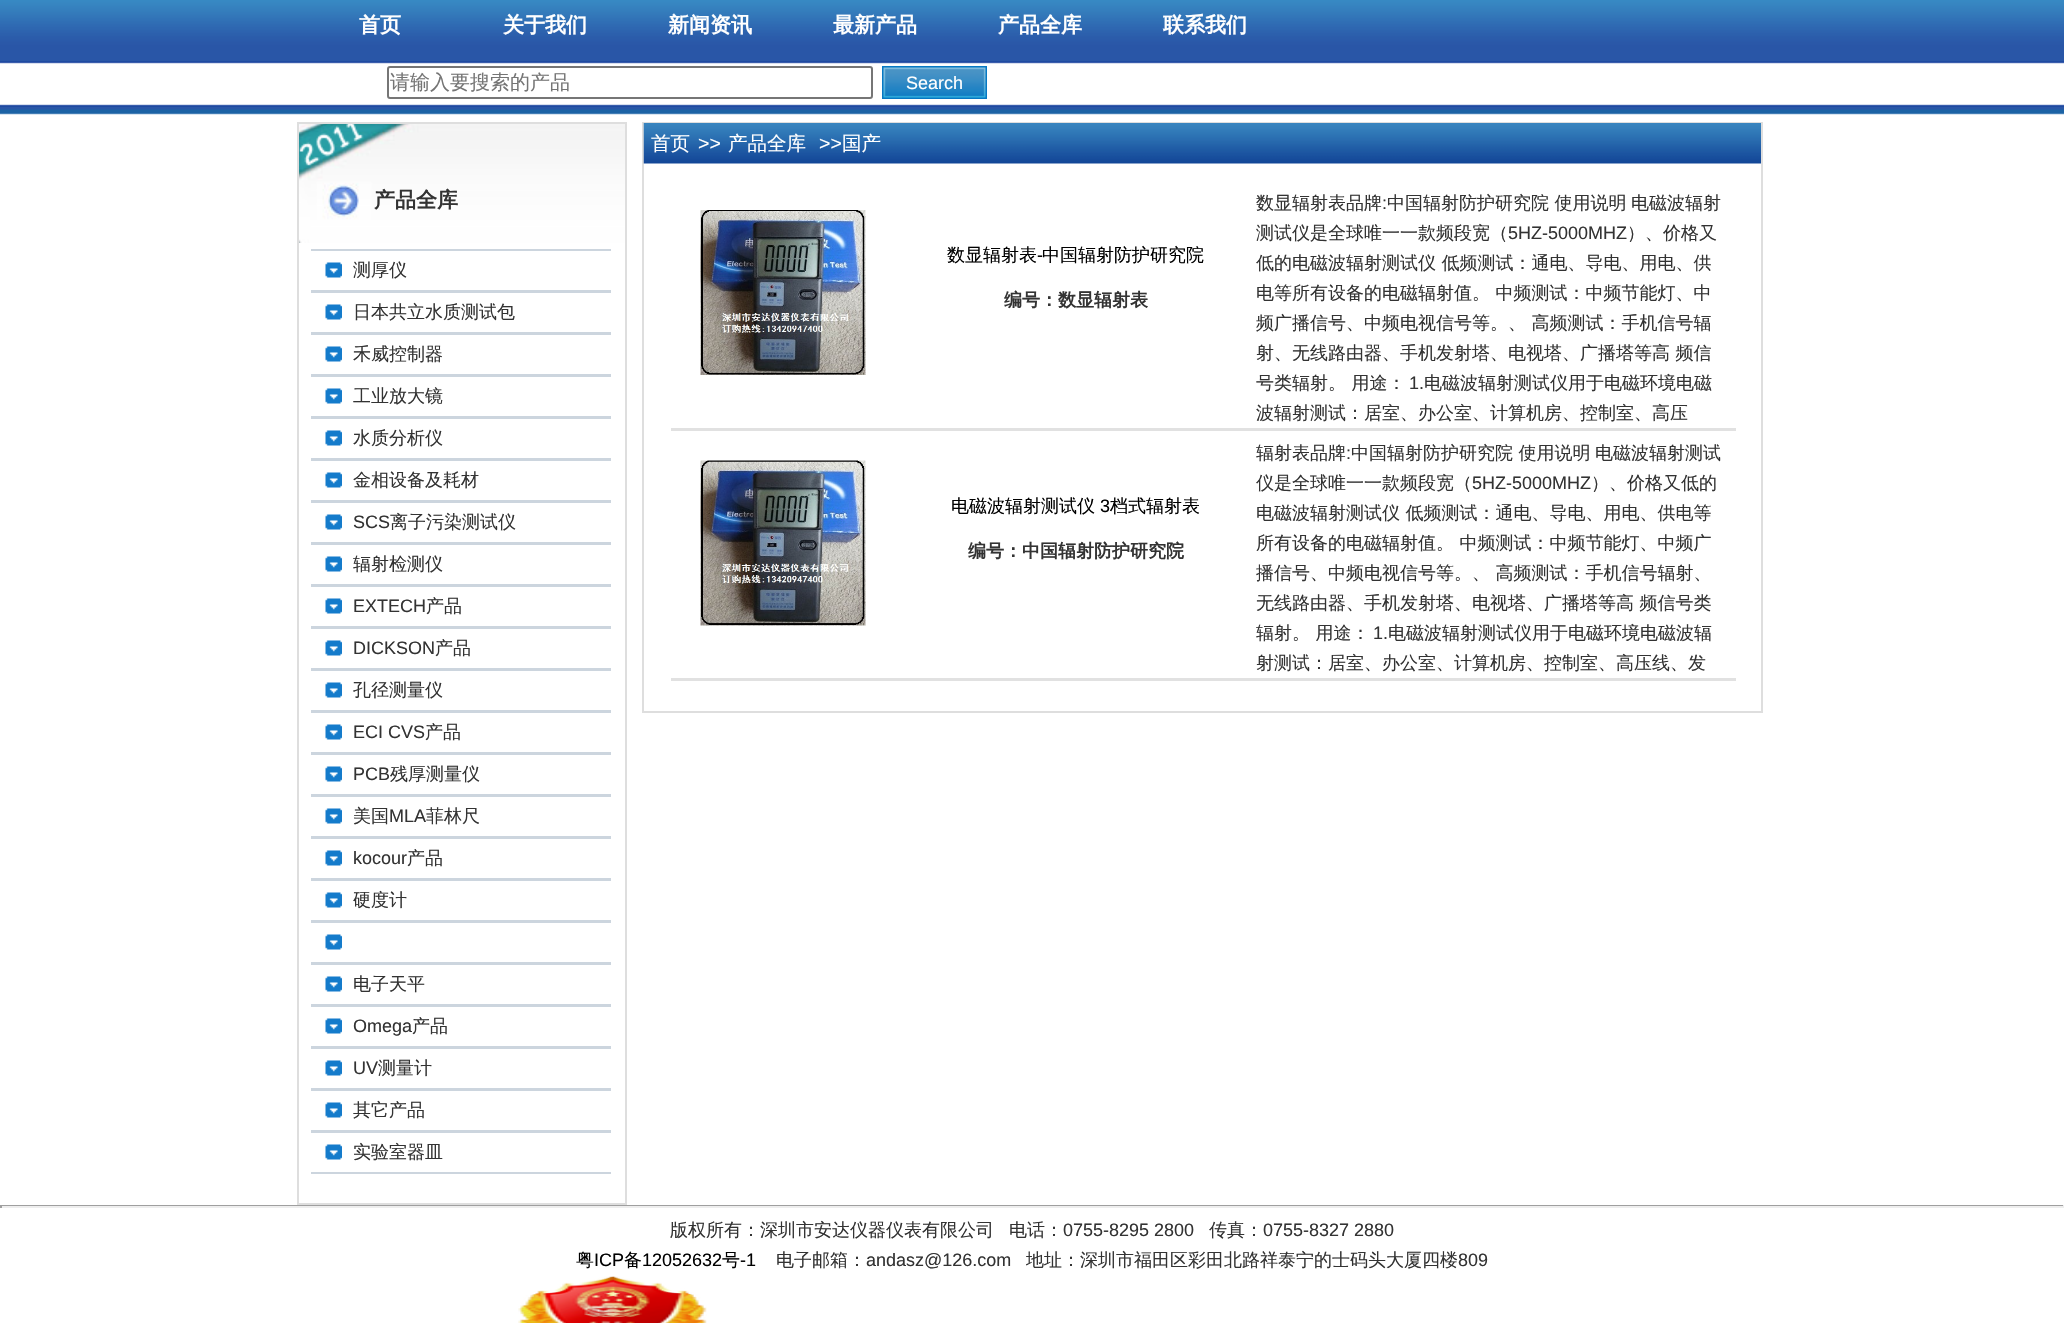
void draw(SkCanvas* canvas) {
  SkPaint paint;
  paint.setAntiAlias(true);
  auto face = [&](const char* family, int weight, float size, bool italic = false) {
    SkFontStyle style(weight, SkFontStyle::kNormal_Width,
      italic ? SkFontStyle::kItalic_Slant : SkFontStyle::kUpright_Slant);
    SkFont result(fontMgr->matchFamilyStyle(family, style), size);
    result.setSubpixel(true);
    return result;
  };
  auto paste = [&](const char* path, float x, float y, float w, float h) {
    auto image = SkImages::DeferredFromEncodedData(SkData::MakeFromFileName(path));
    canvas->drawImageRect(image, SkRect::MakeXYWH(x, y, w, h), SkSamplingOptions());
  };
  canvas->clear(0xffffffff);
  paste("img/1.png", 0, 0, 2064, 115);
  paint.setStroke(true);
  paint.setStrokeWidth(2);
  paint.setColor(0xff767676);
  canvas->drawRoundRect(SkRect::MakeXYWH(388, 67, 484, 31), 2, 2, paint);
  paste("img/2.png", 882, 66, 105, 33);
  paste("img/3.png", 299, 124, 326, 119);
  paint.setColor(0xffdedede);
  canvas->drawRect(SkRect::MakeXYWH(298, 123, 328, 1081), paint);
  paste("img/4.png", 325, 262, 17, 16);
  paint.setStroke(false);
  paint.setColor(0xffccd5de);
  canvas->drawRect(SkRect::MakeXYWH(311, 249, 300, 2), paint);
  canvas->drawRect(SkRect::MakeXYWH(311, 290, 300, 3), paint);
  paste("img/4.png", 325, 304, 17, 16);
  canvas->drawRect(SkRect::MakeXYWH(311, 332, 300, 3), paint);
  paste("img/4.png", 325, 346, 17, 16);
  canvas->drawRect(SkRect::MakeXYWH(311, 374, 300, 3), paint);
  paste("img/4.png", 325, 388, 17, 16);
  canvas->drawRect(SkRect::MakeXYWH(311, 416, 300, 3), paint);
  paste("img/4.png", 325, 430, 17, 16);
  canvas->drawRect(SkRect::MakeXYWH(311, 458, 300, 3), paint);
  paste("img/4.png", 325, 472, 17, 16);
  canvas->drawRect(SkRect::MakeXYWH(311, 500, 300, 3), paint);
  paste("img/4.png", 325, 514, 17, 16);
  canvas->drawRect(SkRect::MakeXYWH(311, 542, 300, 3), paint);
  paste("img/4.png", 325, 556, 17, 16);
  canvas->drawRect(SkRect::MakeXYWH(311, 584, 300, 3), paint);
  paste("img/4.png", 325, 598, 17, 16);
  canvas->drawRect(SkRect::MakeXYWH(311, 626, 300, 3), paint);
  paste("img/4.png", 325, 640, 17, 16);
  canvas->drawRect(SkRect::MakeXYWH(311, 668, 300, 3), paint);
  paste("img/4.png", 325, 682, 17, 16);
  canvas->drawRect(SkRect::MakeXYWH(311, 710, 300, 3), paint);
  paste("img/4.png", 325, 724, 17, 16);
  canvas->drawRect(SkRect::MakeXYWH(311, 752, 300, 3), paint);
  paste("img/4.png", 325, 766, 17, 16);
  canvas->drawRect(SkRect::MakeXYWH(311, 794, 300, 3), paint);
  paste("img/4.png", 325, 808, 17, 16);
  canvas->drawRect(SkRect::MakeXYWH(311, 836, 300, 3), paint);
  paste("img/4.png", 325, 850, 17, 16);
  canvas->drawRect(SkRect::MakeXYWH(311, 878, 300, 3), paint);
  paste("img/4.png", 325, 892, 17, 16);
  canvas->drawRect(SkRect::MakeXYWH(311, 920, 300, 3), paint);
  paste("img/4.png", 325, 934, 17, 16);
  canvas->drawRect(SkRect::MakeXYWH(311, 962, 300, 3), paint);
  paste("img/4.png", 325, 976, 17, 16);
  canvas->drawRect(SkRect::MakeXYWH(311, 1004, 300, 3), paint);
  paste("img/4.png", 325, 1018, 17, 16);
  canvas->drawRect(SkRect::MakeXYWH(311, 1046, 300, 3), paint);
  paste("img/4.png", 325, 1060, 17, 16);
  canvas->drawRect(SkRect::MakeXYWH(311, 1088, 300, 3), paint);
  paste("img/4.png", 325, 1102, 17, 16);
  canvas->drawRect(SkRect::MakeXYWH(311, 1130, 300, 3), paint);
  paste("img/4.png", 325, 1144, 17, 16);
  canvas->drawRect(SkRect::MakeXYWH(311, 1172, 300, 2), paint);
  paint.setStroke(true);
  paint.setColor(0xffdedede);
  canvas->drawRect(SkRect::MakeXYWH(643, 123, 1119, 589), paint);
  paste("img/5.png", 643, 123, 1118, 41);
  paint.setStroke(false);
  paint.setColor(0xffe1e1e1);
  canvas->drawRect(SkRect::MakeXYWH(671, 428, 1065, 3), paint);
  paste("img/6.png", 700, 210, 166, 165);
  canvas->drawRect(SkRect::MakeXYWH(671, 678, 1065, 3), paint);
  paste("img/7.png", 700, 460, 166, 166);
  {
    const struct { float x, y, w, h; SkColor color; } items[] = {
      {0, 1205, 2064, 1, 0xff9f9f9f},
      {2063, 1205, 1, 3, 0xffeeeeee},
      {0, 1206, 2064, 2, 0xffeeeeee},
      {0, 1205, 2, 3, 0xff9f9f9f},
    };
    for (auto [x, y, w, h, color] : items) {
      paint.setColor(color);
      canvas->drawRect(SkRect::MakeXYWH(x, y, w, h), paint);
    }
  }
  paste("img/8.png", 518, 1276, 189, 47);
  auto f0 = face("WenQuanYi Zen Hei", 700, 21);
  paint.setColor(0xffffffff);
  {
    const struct { const char* s; float x, y; } items[] = {
      {"首页", 359, 32},
      {"关于我们", 503, 32},
      {"新闻资讯", 668, 32},
      {"最新产品", 833, 32},
      {"产品全库", 998, 32},
      {"联系我们", 1163, 32},
    };
    for (auto [s, x, y] : items) {
      canvas->drawString(s, x, y, f0, paint);
    }
  }
  auto f1 = face("WenQuanYi Zen Hei", 500, 20);
  paint.setColor(0xff757575);
  canvas->drawString("请输入要搜索的产品", 390, 89, f1, paint);
  auto f2 = face("Liberation Sans", 400, 18);
  paint.setColor(0xffffffff);
  canvas->drawString("Search", 906, 89, f2, paint);
  paint.setColor(0xff333333);
  canvas->drawString("产品全库", 374, 207, f0, paint);
  auto f3 = face("WenQuanYi Zen Hei", 500, 18);
  {
    const struct { const char* s; float x, y; } items[] = {
      {"测厚仪", 353, 276},
      {"日本共立水质测试包", 353, 318},
      {"禾威控制器", 353, 360},
      {"工业放大镜", 353, 402},
      {"水质分析仪", 353, 444},
      {"金相设备及耗材", 353, 486},
    };
    for (auto [s, x, y] : items) {
      canvas->drawString(s, x, y, f3, paint);
    }
  }
  canvas->drawString("SCS", 353, 528, f2, paint);
  canvas->drawString("离子污染测试仪", 390, 528, f3, paint);
  canvas->drawString("辐射检测仪", 353, 570, f3, paint);
  canvas->drawString("EXTECH", 353, 612, f2, paint);
  canvas->drawString("产品", 426, 612, f3, paint);
  canvas->drawString("DICKSON", 353, 654, f2, paint);
  canvas->drawString("产品", 435, 654, f3, paint);
  canvas->drawString("孔径测量仪", 353, 696, f3, paint);
  canvas->drawString("ECI CVS", 353, 738, f2, paint);
  canvas->drawString("产品", 425, 738, f3, paint);
  canvas->drawString("PCB", 353, 780, f2, paint);
  canvas->drawString("残厚测量仪", 390, 780, f3, paint);
  canvas->drawString("美国", 353, 822, f3, paint);
  canvas->drawString("MLA", 389, 822, f2, paint);
  canvas->drawString("菲林尺", 426, 822, f3, paint);
  canvas->drawString("kocour", 353, 864, f2, paint);
  {
    const struct { const char* s; float x, y; } items[] = {
      {"产品", 407, 864},
      {"硬度计", 353, 906},
      {"电子天平", 353, 990},
    };
    for (auto [s, x, y] : items) {
      canvas->drawString(s, x, y, f3, paint);
    }
  }
  canvas->drawString("Omega", 353, 1032, f2, paint);
  canvas->drawString("产品", 412, 1032, f3, paint);
  canvas->drawString("UV", 353, 1074, f2, paint);
  {
    const struct { const char* s; float x, y; } items[] = {
      {"测量计", 378, 1074},
      {"其它产品", 353, 1116},
      {"实验室器皿", 353, 1158},
    };
    for (auto [s, x, y] : items) {
      canvas->drawString(s, x, y, f3, paint);
    }
  }
  auto f4 = face("WenQuanYi Zen Hei", 500, 19.5f);
  paint.setColor(0xffffffff);
  canvas->drawString("首页", 651, 150, f4, paint);
  auto f5 = face("Liberation Sans", 400, 19.5f);
  canvas->drawString(">>", 698, 150, f5, paint);
  canvas->drawString("产品全库", 728, 150, f4, paint);
  canvas->drawString(">>", 819, 150, f5, paint);
  canvas->drawString("国产", 842, 150, f4, paint);
  paint.setColor(0xff000000);
  canvas->drawString("数显辐射表", 947, 261, f3, paint);
  canvas->drawString("-", 1037, 261, f2, paint);
  canvas->drawString("中国辐射防护研究院", 1042, 261, f3, paint);
  auto f6 = face("WenQuanYi Zen Hei", 700, 18);
  paint.setColor(0xff333333);
  canvas->drawString("编号：数显辐射表", 1004, 306, f6, paint);
  canvas->drawString("数显辐射表品牌", 1256, 209, f3, paint);
  canvas->drawString(":", 1382, 209, f2, paint);
  {
    const struct { const char* s; float x, y; } items[] = {
      {"中国辐射防护研究院 使用说明", 1387, 209},
      {"电磁波辐射", 1631, 209},
      {"测试仪是全球唯一一款频段宽（", 1256, 239},
    };
    for (auto [s, x, y] : items) {
      canvas->drawString(s, x, y, f3, paint);
    }
  }
  canvas->drawString("5HZ-5000MHZ", 1508, 239, f2, paint);
  {
    const struct { const char* s; float x, y; } items[] = {
      {"）、价格又", 1627, 239},
      {"低的电磁波辐射测试仪 低频测试：通电、导电、用电、供", 1256, 269},
      {"电等所有设备的电磁辐射值。 中频测试：中频节能灯、中", 1256, 299},
      {"频广播信号、中频电视信号等。、 高频测试：手机信号辐", 1256, 329},
      {"射、无线路由器、手机发射塔、电视塔、广播塔等高 频信", 1256, 359},
      {"号类辐射。 用途：", 1256, 389},
    };
    for (auto [s, x, y] : items) {
      canvas->drawString(s, x, y, f3, paint);
    }
  }
  canvas->drawString("1.", 1409, 389, f2, paint);
  canvas->drawString("电磁波辐射测试仪用于电磁环境电磁", 1424, 389, f3, paint);
  canvas->drawString("波辐射测试：居室、办公室、计算机房、控制室、高压", 1256, 419, f3, paint);
  paint.setColor(0xff000000);
  canvas->drawString("电磁波辐射测试仪", 951, 512, f3, paint);
  canvas->drawString("3", 1100, 512, f2, paint);
  canvas->drawString("档式辐射表", 1110, 512, f3, paint);
  paint.setColor(0xff333333);
  canvas->drawString("编号：中国辐射防护研究院", 968, 557, f6, paint);
  canvas->drawString("辐射表品牌", 1256, 459, f3, paint);
  canvas->drawString(":", 1346, 459, f2, paint);
  {
    const struct { const char* s; float x, y; } items[] = {
      {"中国辐射防护研究院 使用说明", 1351, 459},
      {"电磁波辐射测试", 1595, 459},
      {"仪是全球唯一一款频段宽（", 1256, 489},
    };
    for (auto [s, x, y] : items) {
      canvas->drawString(s, x, y, f3, paint);
    }
  }
  canvas->drawString("5HZ-5000MHZ", 1472, 489, f2, paint);
  {
    const struct { const char* s; float x, y; } items[] = {
      {"）、价格又低的", 1591, 489},
      {"电磁波辐射测试仪 低频测试：通电、导电、用电、供电等", 1256, 519},
      {"所有设备的电磁辐射值。 中频测试：中频节能灯、中频广", 1256, 549},
      {"播信号、中频电视信号等。、 高频测试：手机信号辐射、", 1256, 579},
      {"无线路由器、手机发射塔、电视塔、广播塔等高 频信号类", 1256, 609},
      {"辐射。 用途：", 1256, 639},
    };
    for (auto [s, x, y] : items) {
      canvas->drawString(s, x, y, f3, paint);
    }
  }
  canvas->drawString("1.", 1373, 639, f2, paint);
  {
    const struct { const char* s; float x, y; } items[] = {
      {"电磁波辐射测试仪用于电磁环境电磁波辐", 1388, 639},
      {"射测试：居室、办公室、计算机房、控制室、高压线、发", 1256, 669},
      {"版权所有：深圳市安达仪器仪表有限公司", 670, 1236},
      {"电话：", 1009, 1236},
    };
    for (auto [s, x, y] : items) {
      canvas->drawString(s, x, y, f3, paint);
    }
  }
  canvas->drawString("0755-8295 2800", 1063, 1236, f2, paint);
  canvas->drawString("传真：", 1209, 1236, f3, paint);
  canvas->drawString("0755-8327 2880", 1263, 1236, f2, paint);
  paint.setColor(0xff000000);
  canvas->drawString("粤", 576, 1266, f3, paint);
  canvas->drawString("ICP", 594, 1266, f2, paint);
  canvas->drawString("备", 624, 1266, f3, paint);
  canvas->drawString("12052632", 642, 1266, f2, paint);
  canvas->drawString("号", 722, 1266, f3, paint);
  canvas->drawString("-1", 740, 1266, f2, paint);
  paint.setColor(0xff333333);
  canvas->drawString("电子邮箱：", 776, 1266, f3, paint);
  canvas->drawString("andasz@126.com", 866, 1266, f2, paint);
  canvas->drawString("地址：深圳市福田区彩田北路祥泰宁的士码头大厦四楼", 1026, 1266, f3, paint);
  canvas->drawString("809", 1458, 1266, f2, paint);
}
